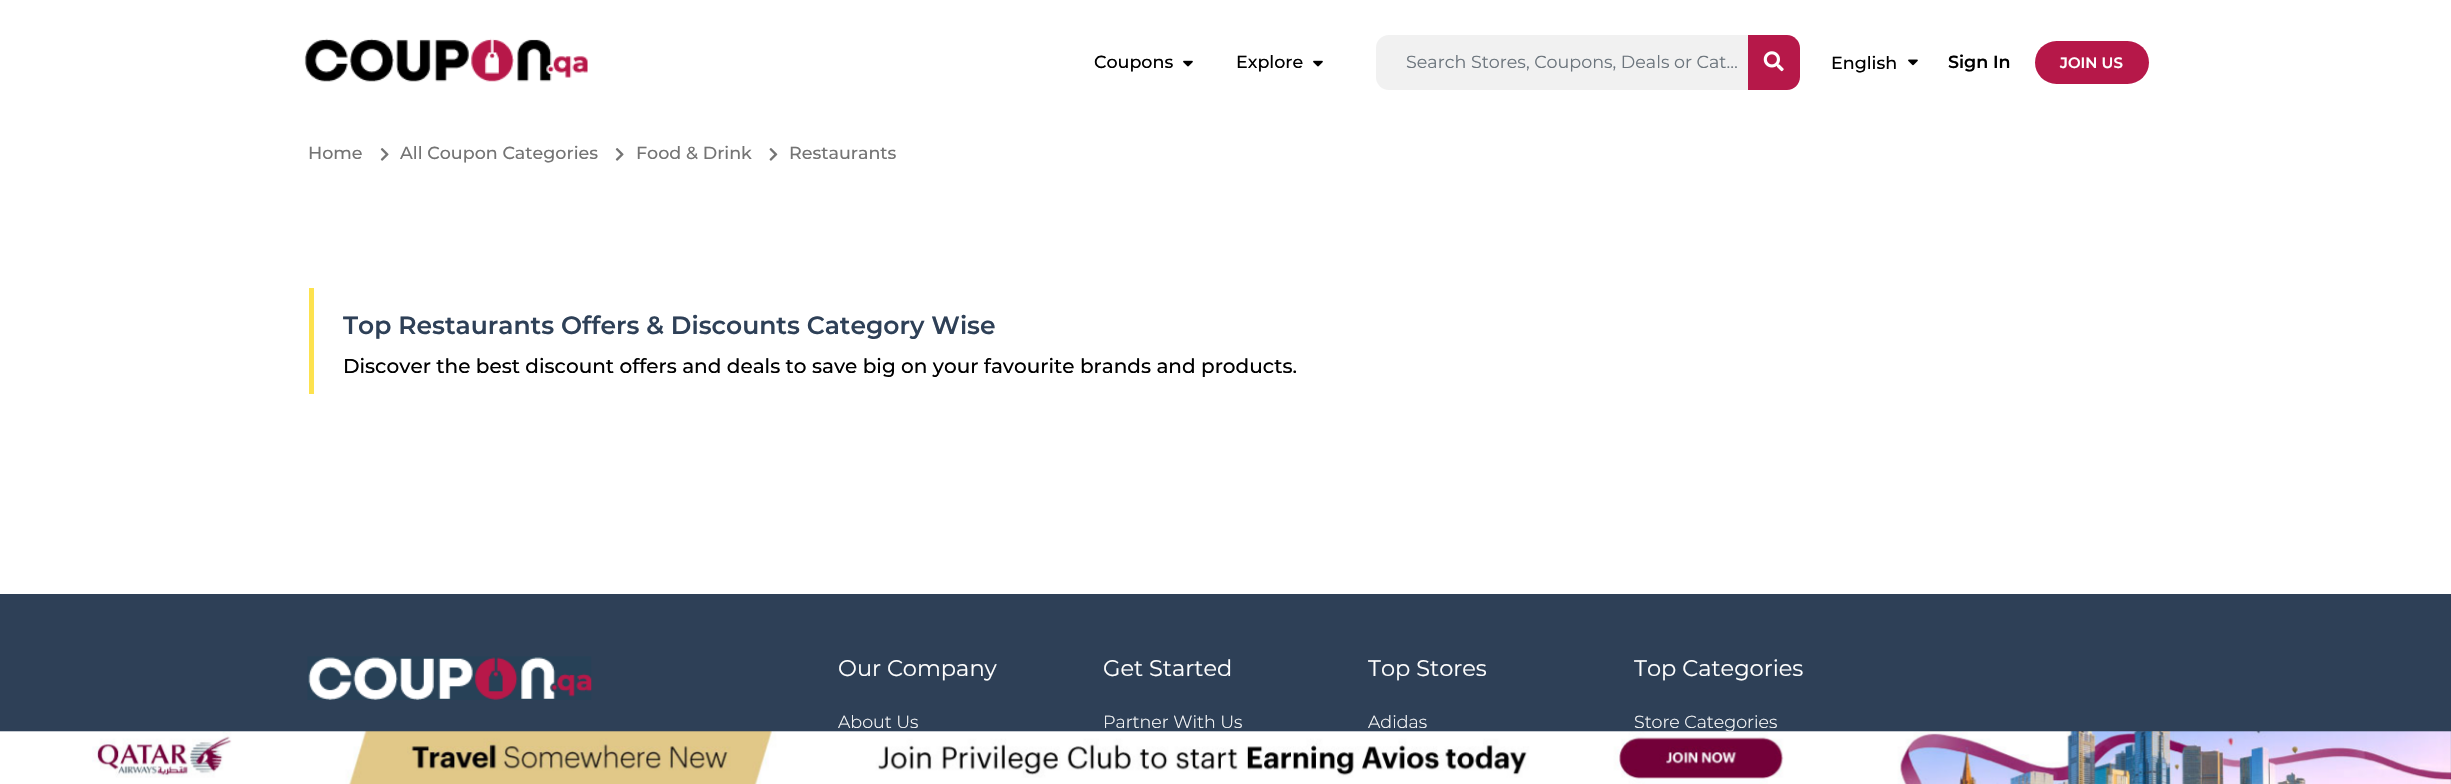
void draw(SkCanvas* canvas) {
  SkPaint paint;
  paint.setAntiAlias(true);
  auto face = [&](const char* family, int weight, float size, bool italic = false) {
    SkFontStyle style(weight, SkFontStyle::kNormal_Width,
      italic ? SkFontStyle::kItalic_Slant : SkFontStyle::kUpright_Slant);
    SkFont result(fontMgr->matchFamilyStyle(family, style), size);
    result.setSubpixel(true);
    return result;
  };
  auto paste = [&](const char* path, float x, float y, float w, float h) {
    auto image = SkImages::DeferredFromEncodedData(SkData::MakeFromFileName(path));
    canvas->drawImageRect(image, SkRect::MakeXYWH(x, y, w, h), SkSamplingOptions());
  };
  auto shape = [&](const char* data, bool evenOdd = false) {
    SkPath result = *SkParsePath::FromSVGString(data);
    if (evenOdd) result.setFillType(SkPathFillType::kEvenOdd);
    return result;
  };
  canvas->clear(0xffffffff);
  paste("img/1.png", 304, 38, 284, 44);
  paste("img/2.png", 1183, 60, 10, 7);
  paste("img/2.png", 1313, 60, 10, 7);
  paint.setColor(0xfff1f1f1);
  canvas->drawRoundRect(SkRect::MakeXYWH(1376, 35, 399, 55), 13, 13, paint);
  paint.setColor(0xffb61849);
  canvas->drawPath(shape("M1748 35H1787C1794 35 1800 41 1800 48V77C1800 84 1794 90 1787 90H1748Z"), paint);
  paste("img/3.png", 1763, 51, 21, 21);
  paste("img/4.png", 1908, 59, 10, 7);
  canvas->drawRoundRect(SkRect::MakeXYWH(2035, 41, 114, 43), 21.5f, 21.5f, paint);
  paste("img/5.png", 380, 148, 9, 13);
  paste("img/5.png", 615, 148, 9, 13);
  paste("img/6.png", 769, 148, 9, 13);
  paint.setColor(0xfffde24e);
  canvas->drawRect(SkRect::MakeXYWH(309, 288, 5, 106), paint);
  paint.setColor(0xff2e4057);
  canvas->drawRect(SkRect::MakeXYWH(0, 594, 2451, 190), paint);
  paste("img/7.png", 307, 656, 285, 44);
  auto f0 = face("Montserrat", 500, 17.5f);
  paint.setColor(0xff000000);
  canvas->drawString("Coupons", 1094, 68, f0, paint);
  canvas->drawString("Explore", 1236, 68, f0, paint);
  auto f1 = face("Montserrat", 400, 17.5f);
  paint.setColor(0xff6c757d);
  canvas->drawString("Search Stores, Coupons, Deals or Cat…", 1406, 68, f1, paint);
  paint.setColor(0xff000000);
  canvas->drawString("English", 1831, 69, f0, paint);
  auto f2 = face("Montserrat", 600, 17.5f);
  canvas->drawString("Sign In", 1948, 68, f2, paint);
  auto f3 = face("Montserrat", 600, 15);
  paint.setColor(0xffffffff);
  canvas->drawString("JOIN US", 2060, 68, f3, paint);
  paint.setColor(0xff747474);
  {
    const struct { const char* s; float x, y; } items[] = {
      {"Home", 308, 159},
      {"All Coupon Categories", 400, 159},
      {"Food & Drink", 636, 159},
      {"Restaurants", 789, 159},
    };
    for (auto [s, x, y] : items) {
      canvas->drawString(s, x, y, f0, paint);
    }
  }
  auto f4 = face("Montserrat", 600, 25);
  paint.setColor(0xff2e4057);
  canvas->drawString("Top Restaurants Offers & Discounts Category Wise", 343, 334, f4, paint);
  auto f5 = face("Montserrat", 500, 20);
  paint.setColor(0xff000000);
  canvas->drawString("Discover the best discount offers and deals to save big on your favourite brands and products.", 343, 373, f5, paint);
  auto f6 = face("Montserrat", 400, 22.5f);
  paint.setColor(0xffffffff);
  canvas->drawString("Our Company", 838, 676, f6, paint);
  auto f7 = face("Montserrat", 300, 17.5f);
  canvas->drawString("About Us", 838, 728, f7, paint);
  canvas->drawString("Get Started", 1103, 676, f6, paint);
  canvas->drawString("Partner With Us", 1103, 728, f7, paint);
  canvas->drawString("Top Stores", 1368, 676, f6, paint);
  canvas->drawString("Adidas", 1368, 728, f7, paint);
  canvas->drawString("Top Categories", 1634, 676, f6, paint);
  canvas->drawString("Store Categories", 1634, 728, f7, paint);
  paste("img/8.png", 0, 731, 2451, 53);
}
